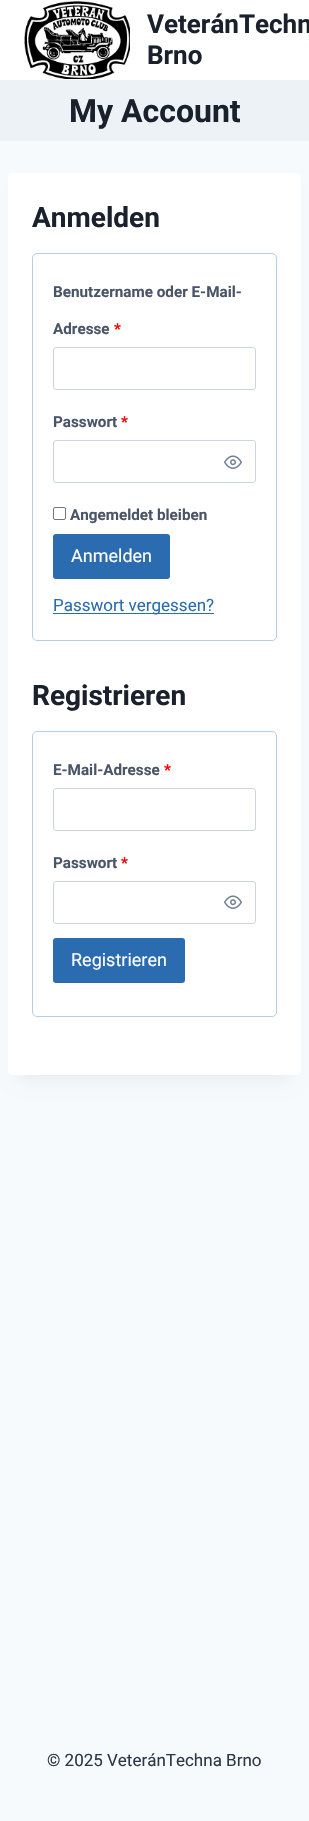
void draw(SkCanvas* canvas) {
  SkPaint paint;
  paint.setAntiAlias(true);
  auto face = [&](const char* family, int weight, float size, bool italic = false) {
    SkFontStyle style(weight, SkFontStyle::kNormal_Width,
      italic ? SkFontStyle::kItalic_Slant : SkFontStyle::kUpright_Slant);
    SkFont result(fontMgr->matchFamilyStyle(family, style), size);
    result.setSubpixel(true);
    return result;
  };
  auto paste = [&](const char* path, float x, float y, float w, float h) {
    auto image = SkImages::DeferredFromEncodedData(SkData::MakeFromFileName(path));
    canvas->drawImageRect(image, SkRect::MakeXYWH(x, y, w, h), SkSamplingOptions());
  };
  canvas->clear(0xfff7fafc);
  paint.setColor(0xffffffff);
  canvas->drawRect(SkRect::MakeXYWH(0, 0, 309, 80), paint);
  paste("img/1.png", 24, 1, 106, 78);
  paint.setColor(0xffedf2f7);
  canvas->drawRect(SkRect::MakeXYWH(0, 80, 309, 61), paint);
  paint.setColor(0x0d000000);
  paint.setMaskFilter(SkMaskFilter::MakeBlur(kNormal_SkBlurStyle, 7.5f));
  canvas->drawRect(SkRect::MakeXYWH(18, 198, 273, 882), paint);
  paint.setMaskFilter(nullptr);
  paint.setColor(0xffffffff);
  canvas->drawRoundRect(SkRect::MakeXYWH(8, 173, 293, 902), 4, 4, paint);
  paint.setStroke(true);
  paint.setStrokeWidth(1);
  paint.setColor(0xffb7cde1);
  canvas->drawRoundRect(SkRect::MakeXYWH(32.5f, 253.5f, 244, 387), 4.5f, 4.5f, paint);
  paint.setColor(0xffcbd5e0);
  canvas->drawRoundRect(SkRect::MakeXYWH(53.5f, 347.5f, 202, 42), 2.5f, 2.5f, paint);
  canvas->drawRoundRect(SkRect::MakeXYWH(53.5f, 440.5f, 202, 42), 2.5f, 2.5f, paint);
  paste("img/2.png", 224, 455, 18, 14);
  paint.setColor(0xff767676);
  canvas->drawRoundRect(SkRect::MakeXYWH(53.5f, 507.5f, 12, 12), 1.5f, 1.5f, paint);
  paint.setStroke(false);
  paint.setColor(0xff2b6cb0);
  canvas->drawRoundRect(SkRect::MakeXYWH(53, 534, 117, 45), 3, 3, paint);
  canvas->drawRect(SkRect::MakeXYWH(53, 613, 161, 1), paint);
  paint.setStroke(true);
  paint.setColor(0xffb7cde1);
  canvas->drawRoundRect(SkRect::MakeXYWH(32.5f, 731.5f, 244, 285), 4.5f, 4.5f, paint);
  paint.setColor(0xffcbd5e0);
  canvas->drawRoundRect(SkRect::MakeXYWH(53.5f, 788.5f, 202, 42), 2.5f, 2.5f, paint);
  canvas->drawRoundRect(SkRect::MakeXYWH(53.5f, 881.5f, 202, 42), 2.5f, 2.5f, paint);
  paste("img/2.png", 224, 895, 18, 14);
  paint.setStroke(false);
  paint.setColor(0xff2b6cb0);
  canvas->drawRoundRect(SkRect::MakeXYWH(53, 938, 132, 45), 3, 3, paint);
  auto f0 = face("Roboto", 700, 26);
  paint.setColor(0xff1a202c);
  canvas->drawString("VeteránTechn", 147, 33, f0, paint);
  canvas->drawString("Brno", 147, 64, f0, paint);
  auto f1 = face("Roboto", 700, 32);
  canvas->drawString("My Account", 69, 122, f1, paint);
  auto f2 = face("Roboto", 700, 28);
  canvas->drawString("Anmelden", 32, 227, f2, paint);
  auto f3 = face("Roboto", 700, 15.25f);
  paint.setColor(0xff4a5568);
  canvas->drawString("Benutzername oder E-Mail-", 53, 297, f3, paint);
  canvas->drawString("Adresse", 53, 334, f3, paint);
  paint.setColor(0xffff0000);
  canvas->drawString("*", 114, 334, f3, paint);
  paint.setColor(0xff4a5568);
  canvas->drawString("Passwort", 53, 427, f3, paint);
  paint.setColor(0xffff0000);
  canvas->drawString("*", 121, 427, f3, paint);
  paint.setColor(0xff4a5568);
  canvas->drawString("Angemeldet bleiben", 70, 520, f3, paint);
  auto f4 = face("Roboto", 400, 18);
  paint.setColor(0xffffffff);
  canvas->drawString("Anmelden", 71, 562, f4, paint);
  auto f5 = face("Roboto", 400, 17);
  paint.setColor(0xff2b6cb0);
  canvas->drawString("Passwort vergessen?", 53, 611, f5, paint);
  paint.setColor(0xff1a202c);
  canvas->drawString("Registrieren", 32, 705, f2, paint);
  paint.setColor(0xff4a5568);
  canvas->drawString("E-Mail-Adresse", 53, 775, f3, paint);
  paint.setColor(0xffff0000);
  canvas->drawString("*", 164, 775, f3, paint);
  paint.setColor(0xff4a5568);
  canvas->drawString("Passwort", 53, 868, f3, paint);
  paint.setColor(0xffff0000);
  canvas->drawString("*", 121, 868, f3, paint);
  paint.setColor(0xffffffff);
  canvas->drawString("Registrieren", 71, 966, f4, paint);
  paint.setColor(0xff2d3748);
  canvas->drawString("© 2025 VeteránTechna Brno", 47, 1766, f5, paint);
}
